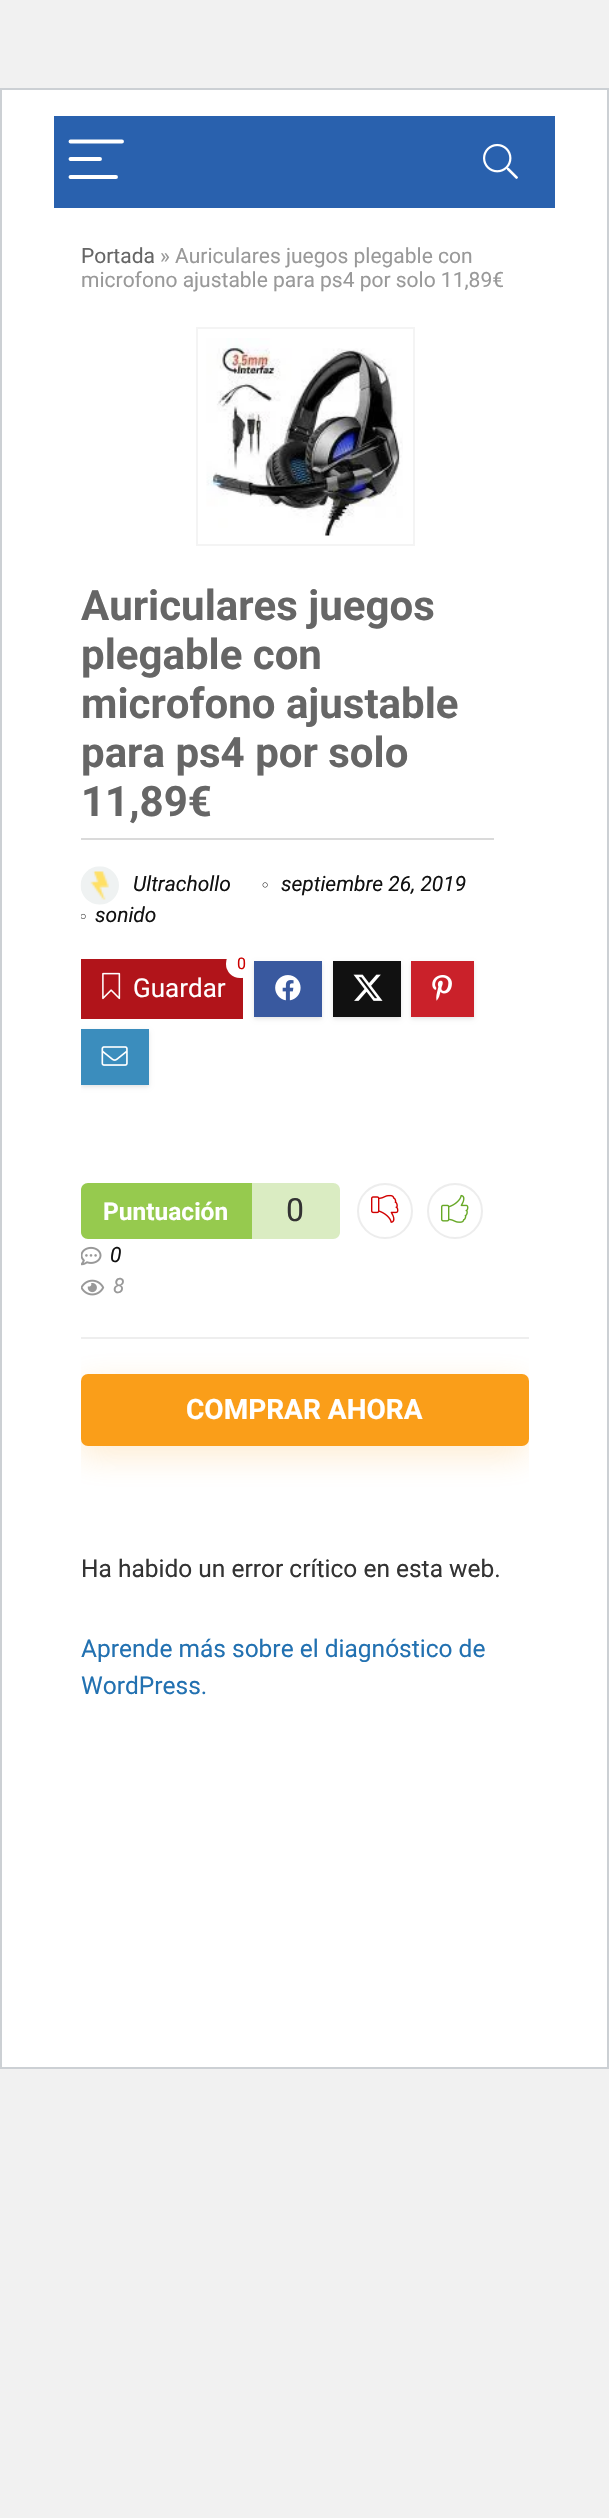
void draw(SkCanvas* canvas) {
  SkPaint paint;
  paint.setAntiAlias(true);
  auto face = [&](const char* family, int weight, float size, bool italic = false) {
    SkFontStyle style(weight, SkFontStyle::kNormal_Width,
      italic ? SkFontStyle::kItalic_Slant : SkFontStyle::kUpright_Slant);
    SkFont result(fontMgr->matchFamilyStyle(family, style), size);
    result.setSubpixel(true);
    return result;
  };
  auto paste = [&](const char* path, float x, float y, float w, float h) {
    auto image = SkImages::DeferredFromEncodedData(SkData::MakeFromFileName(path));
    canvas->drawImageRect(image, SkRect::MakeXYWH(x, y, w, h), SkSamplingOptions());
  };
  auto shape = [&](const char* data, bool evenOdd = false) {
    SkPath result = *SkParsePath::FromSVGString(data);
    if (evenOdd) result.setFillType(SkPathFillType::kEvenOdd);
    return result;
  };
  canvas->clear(0xfff1f1f1);
  paint.setColor(0xffffffff);
  canvas->drawRect(SkRect::MakeXYWH(1, 89, 607, 1979), paint);
  paint.setStroke(true);
  paint.setStrokeWidth(2);
  paint.setColor(0xffccd0d4);
  canvas->drawRect(SkRect::MakeXYWH(1, 89, 607, 1979), paint);
  paint.setStroke(false);
  paint.setColor(0xff2961ae);
  canvas->drawRect(SkRect::MakeXYWH(54, 116, 501, 92), paint);
  paint.setStroke(true);
  paint.setStrokeWidth(3.9f);
  paint.setStrokeCap(SkPaint::kRound_Cap);
  paint.setColor(0xffffffff);
  canvas->drawPath(shape("M70.5 141.5H122M70.5 159H100M70.5 177H116"), paint);
  paste("img/1.png", 483, 143, 35, 36);
  paint.setStrokeWidth(2);
  paint.setStrokeCap(SkPaint::kButt_Cap);
  paint.setColor(0xfff4f4f4);
  canvas->drawRect(SkRect::MakeXYWH(197, 328, 217, 217), paint);
  paste("img/2.png", 206, 338, 197, 198);
  paint.setStroke(false);
  paint.setColor(0xffdadada);
  canvas->drawRect(SkRect::MakeXYWH(81, 838, 413, 2), paint);
  paste("img/3.png", 80, 866, 39, 39);
  paste("img/4.png", 262, 882, 6, 6);
  paste("img/5.png", 81, 913, 5, 6);
  paint.setColor(0xffb1141a);
  canvas->drawRect(SkRect::MakeXYWH(81, 959, 162, 60), paint);
  canvas->save();
  canvas->clipRect(SkRect::MakeXYWH(81, 954, 413, 142));
  paint.setColor(0xffffffff);
  canvas->drawRoundRect(SkRect::MakeXYWH(226, 950, 30, 28), 14, 14, paint);
  canvas->restore();
  paste("img/6.png", 102, 972, 19, 28);
  paint.setColor(0xffe4e4e4);
  paint.setMaskFilter(SkMaskFilter::MakeBlur(kNormal_SkBlurStyle, 2));
  canvas->drawRect(SkRect::MakeXYWH(254, 963, 68, 56), paint);
  paint.setMaskFilter(nullptr);
  paint.setColor(0xff39599f);
  canvas->drawRect(SkRect::MakeXYWH(254, 961, 68, 56), paint);
  paste("img/7.png", 275, 975, 26, 26);
  paint.setColor(0xffe4e4e4);
  paint.setMaskFilter(SkMaskFilter::MakeBlur(kNormal_SkBlurStyle, 2));
  canvas->drawRect(SkRect::MakeXYWH(333, 963, 68, 56), paint);
  paint.setMaskFilter(nullptr);
  paint.setColor(0xff111111);
  canvas->drawRect(SkRect::MakeXYWH(333, 961, 68, 56), paint);
  paste("img/8.png", 353, 974, 30, 27);
  paint.setColor(0xffe4e4e4);
  paint.setMaskFilter(SkMaskFilter::MakeBlur(kNormal_SkBlurStyle, 2));
  canvas->drawRect(SkRect::MakeXYWH(411, 963, 63, 56), paint);
  paint.setMaskFilter(nullptr);
  paint.setColor(0xffca212a);
  canvas->drawRect(SkRect::MakeXYWH(411, 961, 63, 56), paint);
  paste("img/9.png", 432, 975, 20, 26);
  canvas->save();
  canvas->clipRect(SkRect::MakeXYWH(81, 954, 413, 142));
  paint.setColor(0xffe4e4e4);
  paint.setMaskFilter(SkMaskFilter::MakeBlur(kNormal_SkBlurStyle, 2));
  canvas->drawRect(SkRect::MakeXYWH(81, 1031, 68, 56), paint);
  paint.setMaskFilter(nullptr);
  canvas->restore();
  paint.setColor(0xff3b8dbd);
  canvas->drawRect(SkRect::MakeXYWH(81, 1029, 68, 56), paint);
  paste("img/10.png", 101, 1046, 27, 20);
  paint.setColor(0xff96ca4e);
  canvas->drawPath(shape("M88 1183H252V1239H88C84 1239 81 1236 81 1232V1190C81 1186 84 1183 88 1183Z"), paint);
  paint.setColor(0xffdaecc2);
  canvas->drawPath(shape("M252 1183H333C337 1183 340 1186 340 1190V1232C340 1236 337 1239 333 1239H252Z"), paint);
  paint.setStroke(true);
  paint.setColor(0xffededed);
  canvas->drawCircle(385, 1211, 27, paint);
  paste("img/11.png", 371, 1194, 28, 29);
  canvas->drawCircle(455, 1211, 27, paint);
  paste("img/12.png", 441, 1194, 28, 29);
  paste("img/13.png", 81, 1246, 21, 20);
  paste("img/14.png", 81, 1279, 24, 17);
  paint.setStroke(false);
  paint.setColor(0xffeeeeee);
  canvas->drawRect(SkRect::MakeXYWH(81, 1337, 448, 2), paint);
  canvas->save();
  canvas->clipRect(SkRect::MakeXYWH(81, 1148, 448, 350));
  paint.setColor(0x33fa9e19);
  paint.setMaskFilter(SkMaskFilter::MakeBlur(kNormal_SkBlurStyle, 16.5f));
  canvas->drawRoundRect(SkRect::MakeXYWH(79, 1384, 448, 72), 7, 7, paint);
  paint.setMaskFilter(nullptr);
  canvas->restore();
  paint.setColor(0xfffa9e19);
  canvas->drawRoundRect(SkRect::MakeXYWH(81, 1374, 448, 72), 7, 7, paint);
  auto f0 = face("Roboto", 400, 21);
  paint.setColor(0xff666666);
  canvas->drawString("Portada", 81, 263, f0, paint);
  paint.setColor(0xff999999);
  canvas->drawString("» Auriculares juegos plegable con", 160, 263, f0, paint);
  canvas->drawString("microfono ajustable para ps4 por solo 11,89€", 81, 287, f0, paint);
  auto f1 = face("Roboto", 700, 42);
  paint.setColor(0xff666666);
  {
    const struct { const char* s; float x, y; } items[] = {
      {"Auriculares juegos", 81, 620},
      {"plegable con", 81, 669},
      {"microfono ajustable", 81, 718},
      {"para ps4 por solo", 81, 767},
      {"11,89€", 81, 816},
    };
    for (auto [s, x, y] : items) {
      canvas->drawString(s, x, y, f1, paint);
    }
  }
  auto f2 = face("Roboto", 400, 21, true);
  paint.setColor(0xff111111);
  {
    const struct { const char* s; float x, y; } items[] = {
      {"Ultrachollo", 133, 891},
      {"septiembre 26, 2019", 281, 891},
      {"sonido", 95, 922},
    };
    for (auto [s, x, y] : items) {
      canvas->drawString(s, x, y, f2, paint);
    }
  }
  auto f3 = face("Roboto", 400, 16);
  paint.setColor(0xffcc0000);
  canvas->drawString("0", 237, 969, f3, paint);
  auto f4 = face("Roboto", 400, 26);
  paint.setColor(0xffffffff);
  canvas->drawString("Guardar", 133, 997, f4, paint);
  auto f5 = face("Roboto", 700, 24.5f);
  canvas->drawString("Puntuación", 103, 1220, f5, paint);
  auto f6 = face("Roboto", 400, 32);
  paint.setColor(0xff333333);
  canvas->drawString("0", 286, 1221, f6, paint);
  paint.setColor(0xff111111);
  canvas->drawString("0", 110, 1262, f2, paint);
  paint.setColor(0xff999999);
  canvas->drawString("8", 113, 1293, f2, paint);
  auto f7 = face("Roboto", 700, 28);
  paint.setColor(0xffffffff);
  canvas->drawString("COMPRAR AHORA", 186, 1419, f7, paint);
  auto f8 = face("Roboto", 400, 24.5f);
  paint.setColor(0xff333333);
  canvas->drawString("Ha habido un error crítico en esta web.", 81, 1577, f8, paint);
  paint.setColor(0xff2271b1);
  canvas->drawString("Aprende más sobre el diagnóstico de", 81, 1657, f8, paint);
  canvas->drawString("WordPress.", 81, 1694, f8, paint);
}
